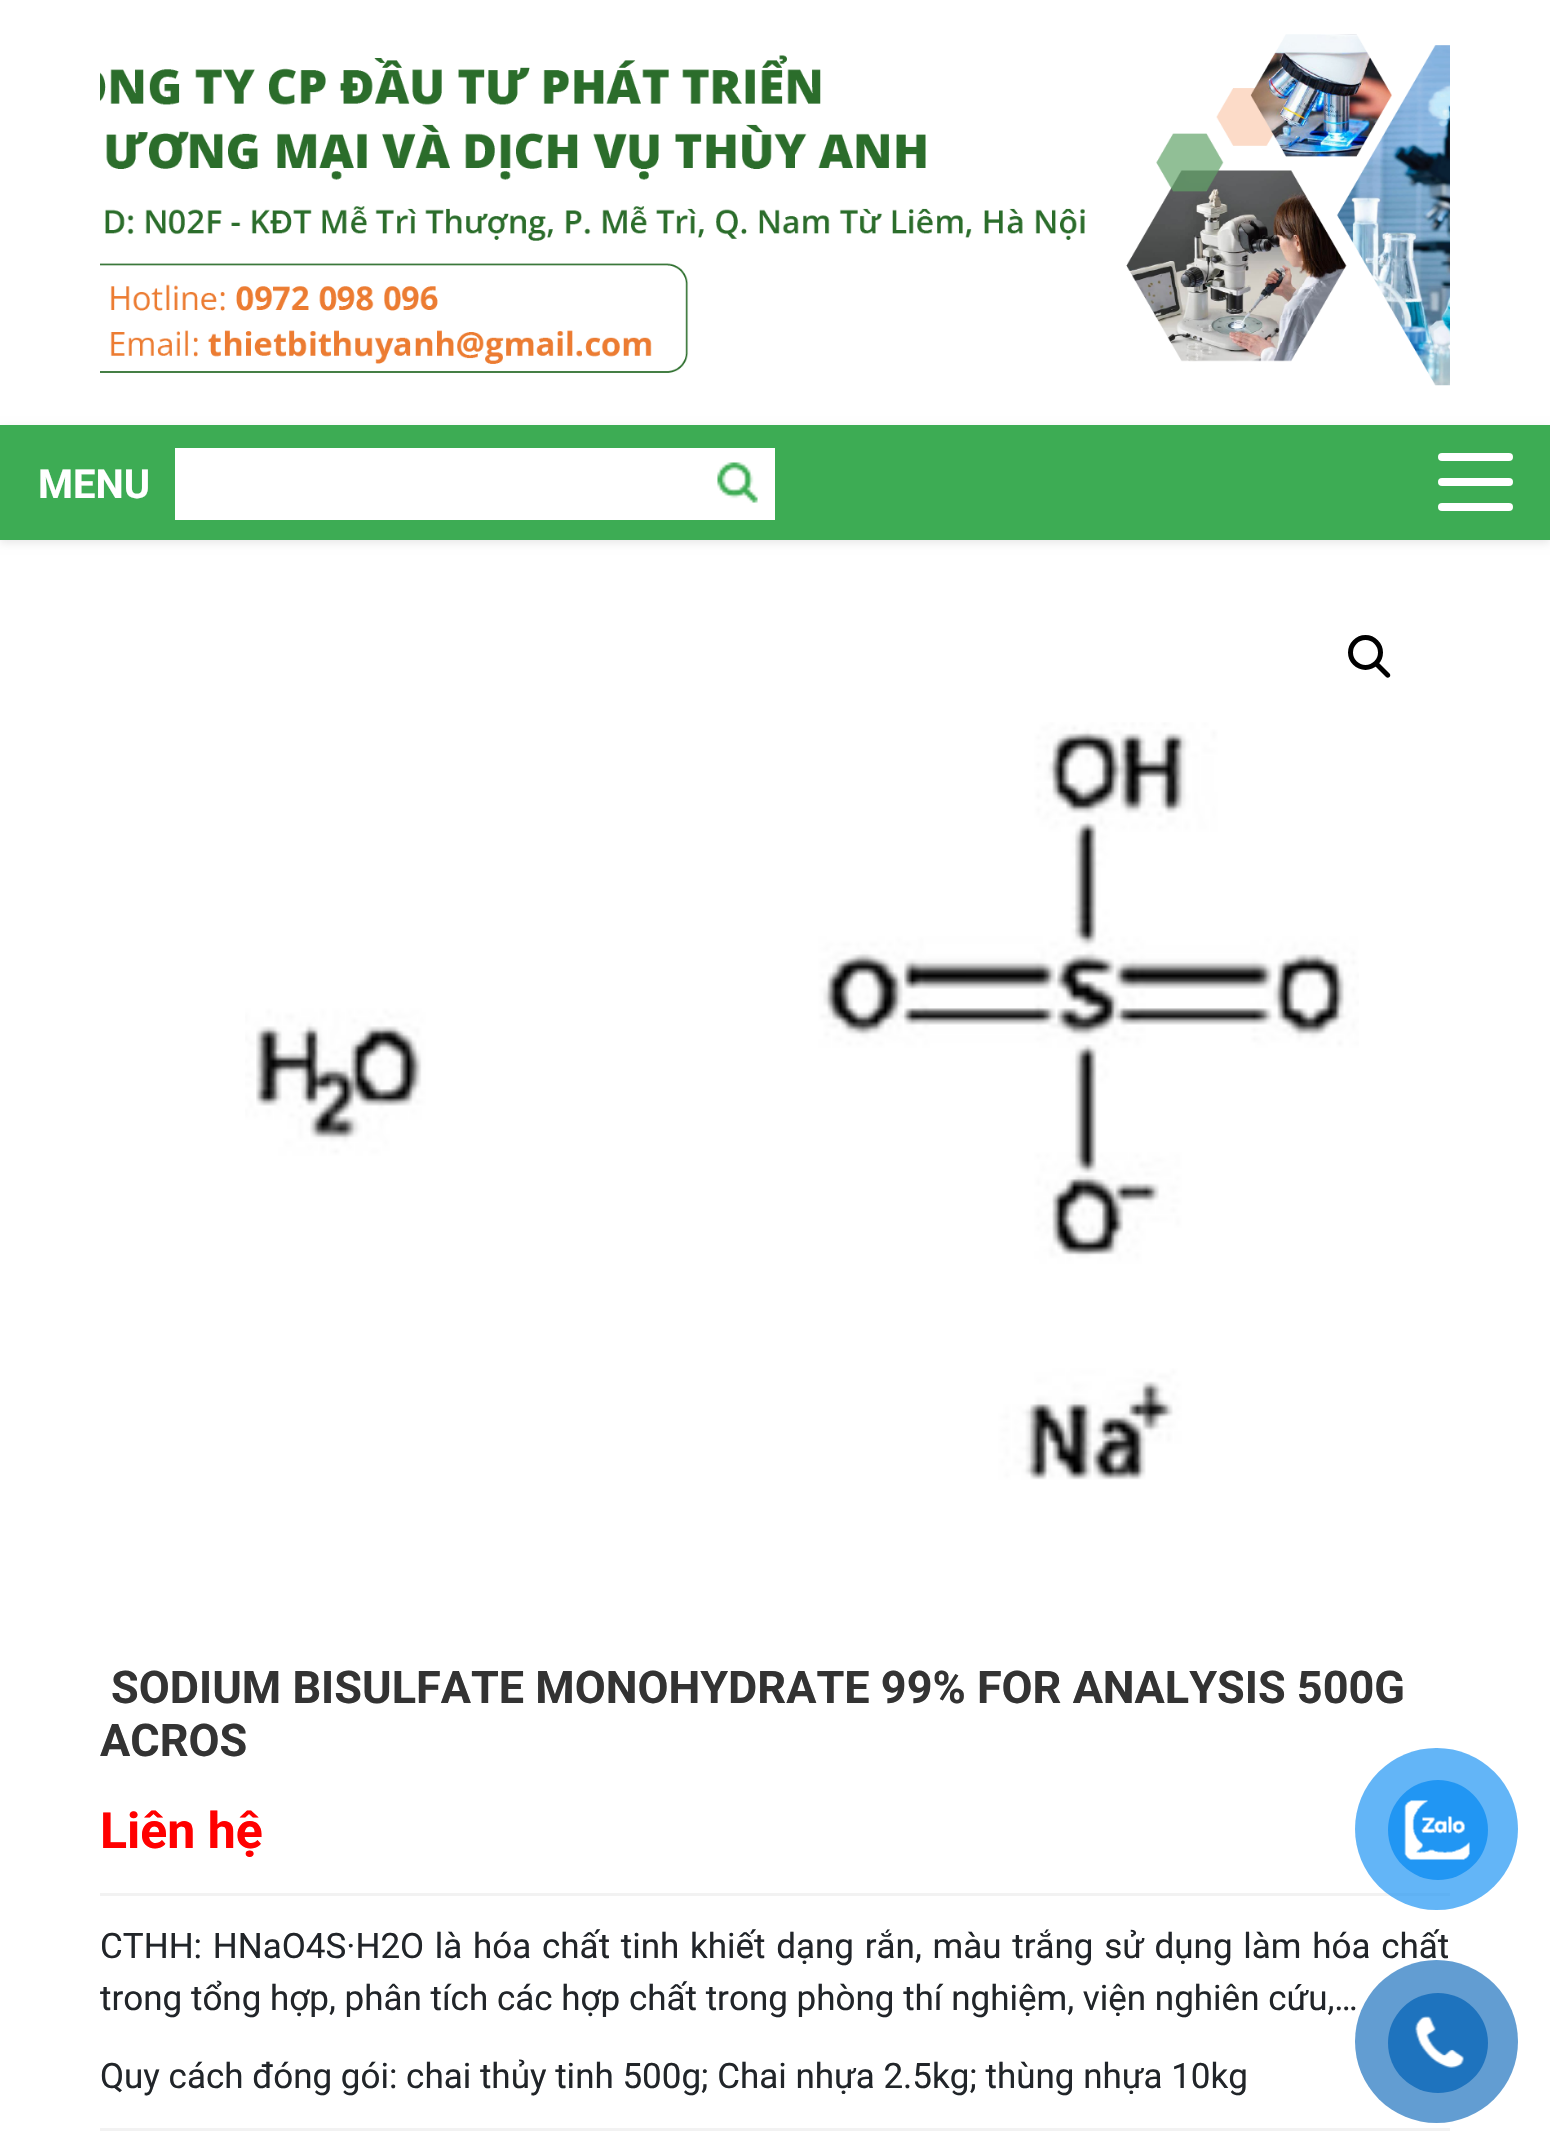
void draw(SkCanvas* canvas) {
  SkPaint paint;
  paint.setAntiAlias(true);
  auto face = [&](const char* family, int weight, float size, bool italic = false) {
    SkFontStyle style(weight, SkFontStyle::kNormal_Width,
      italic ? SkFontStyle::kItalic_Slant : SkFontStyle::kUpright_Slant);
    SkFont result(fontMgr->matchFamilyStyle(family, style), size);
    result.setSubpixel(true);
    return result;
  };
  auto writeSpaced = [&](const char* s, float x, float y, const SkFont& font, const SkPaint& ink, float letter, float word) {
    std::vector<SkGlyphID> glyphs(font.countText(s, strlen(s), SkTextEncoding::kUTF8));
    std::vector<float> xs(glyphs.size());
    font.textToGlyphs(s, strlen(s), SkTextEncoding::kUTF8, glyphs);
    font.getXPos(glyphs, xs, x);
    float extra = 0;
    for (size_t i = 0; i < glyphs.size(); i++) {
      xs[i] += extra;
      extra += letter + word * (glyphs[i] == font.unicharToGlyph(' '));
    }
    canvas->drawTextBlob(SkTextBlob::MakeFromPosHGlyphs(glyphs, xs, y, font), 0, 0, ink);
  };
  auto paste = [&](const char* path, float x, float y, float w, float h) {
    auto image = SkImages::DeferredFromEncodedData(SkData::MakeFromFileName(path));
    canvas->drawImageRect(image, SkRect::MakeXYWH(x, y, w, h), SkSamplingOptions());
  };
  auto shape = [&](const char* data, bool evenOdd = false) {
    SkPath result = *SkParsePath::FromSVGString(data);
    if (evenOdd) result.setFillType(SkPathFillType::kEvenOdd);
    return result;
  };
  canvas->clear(0xffffffff);
  paste("img/1.png", 100, 34, 1350, 352);
  paint.setColor(0x17000000);
  paint.setMaskFilter(SkMaskFilter::MakeBlur(kNormal_SkBlurStyle, 4));
  canvas->drawRect(SkRect::MakeXYWH(0, 428, 1550, 115), paint);
  paint.setMaskFilter(nullptr);
  paint.setColor(0xff3dac54);
  canvas->drawRect(SkRect::MakeXYWH(0, 425, 1550, 115), paint);
  paint.setColor(0xffffffff);
  canvas->drawRect(SkRect::MakeXYWH(175, 448, 600, 72), paint);
  paste("img/2.png", 717, 462, 41, 41);
  canvas->drawRoundRect(SkRect::MakeXYWH(1438, 503, 75, 8), 4, 4, paint);
  canvas->drawRoundRect(SkRect::MakeXYWH(1438, 453, 75, 8), 4, 4, paint);
  canvas->drawRoundRect(SkRect::MakeXYWH(1438, 478, 75, 8), 4, 4, paint);
  paint.setStroke(true);
  paint.setStrokeWidth(5);
  paint.setColor(0xff000000);
  canvas->drawCircle(1365.5f, 652.5f, 15, paint);
  paint.setStroke(false);
  canvas->drawPath(shape("M1375.5 663C1376.5 662 1378 662 1379 663L1389.5 673.5C1390.5 674.5 1390.5 676 1389.5 677C1388.5 678 1387 678 1386 677L1375.5 666.5C1374.5 665.5 1374.5 664 1375.5 663Z"), paint);
  paste("img/3.png", 245, 722, 1114, 758);
  paint.setColor(0xfff2f2f2);
  canvas->drawRect(SkRect::MakeXYWH(100, 1893, 1350, 3), paint);
  canvas->drawRect(SkRect::MakeXYWH(100, 2128, 1350, 3), paint);
  paint.setColor(0xb32196f3);
  canvas->drawRoundRect(SkRect::MakeXYWH(1355, 1748, 163, 162), 81, 81, paint);
  paint.setColor(0xff2196f3);
  canvas->drawCircle(1438, 1830, 50, paint);
  paste("img/4.png", 1404, 1800, 66, 60);
  auto f0 = face("Roboto", 700, 40);
  paint.setColor(0xffffffff);
  canvas->drawString("MENU", 38, 498, f0, paint);
  auto f1 = face("Roboto", 700, 45);
  paint.setColor(0xff333333);
  canvas->drawString("SODIUM BISULFATE MONOHYDRATE 99% FOR ANALYSIS 500G", 111, 1703, f1, paint);
  canvas->drawString("ACROS", 100, 1756, f1, paint);
  auto f2 = face("Roboto", 700, 50);
  paint.setColor(0xffff0000);
  canvas->drawString("Liên hệ", 100, 1848, f2, paint);
  auto f3 = face("Roboto", 400, 35);
  paint.setColor(0xff212529);
  writeSpaced("CTHH: HNaO4S·H2O là hóa chất tinh khiết dạng rắn, màu trắng sử dụng làm hóa chất", 100, 1958, f3, paint, 0, 2);
  canvas->drawString("trong tổng hợp, phân tích các hợp chất trong phòng thí nghiệm, viện nghiên cứu,…", 100, 2010, f3, paint);
  canvas->drawString("Quy cách đóng gói: chai thủy tinh 500g; Chai nhựa 2.5kg; thùng nhựa 10kg", 100, 2088, f3, paint);
  paint.setColor(0xff629dd2);
  canvas->drawCircle(1436.5f, 2041.5f, 81.5f, paint);
  paint.setColor(0xff1e73be);
  canvas->drawCircle(1438, 2043, 50, paint);
  paste("img/5.png", 1415, 2016, 49, 52);
}
